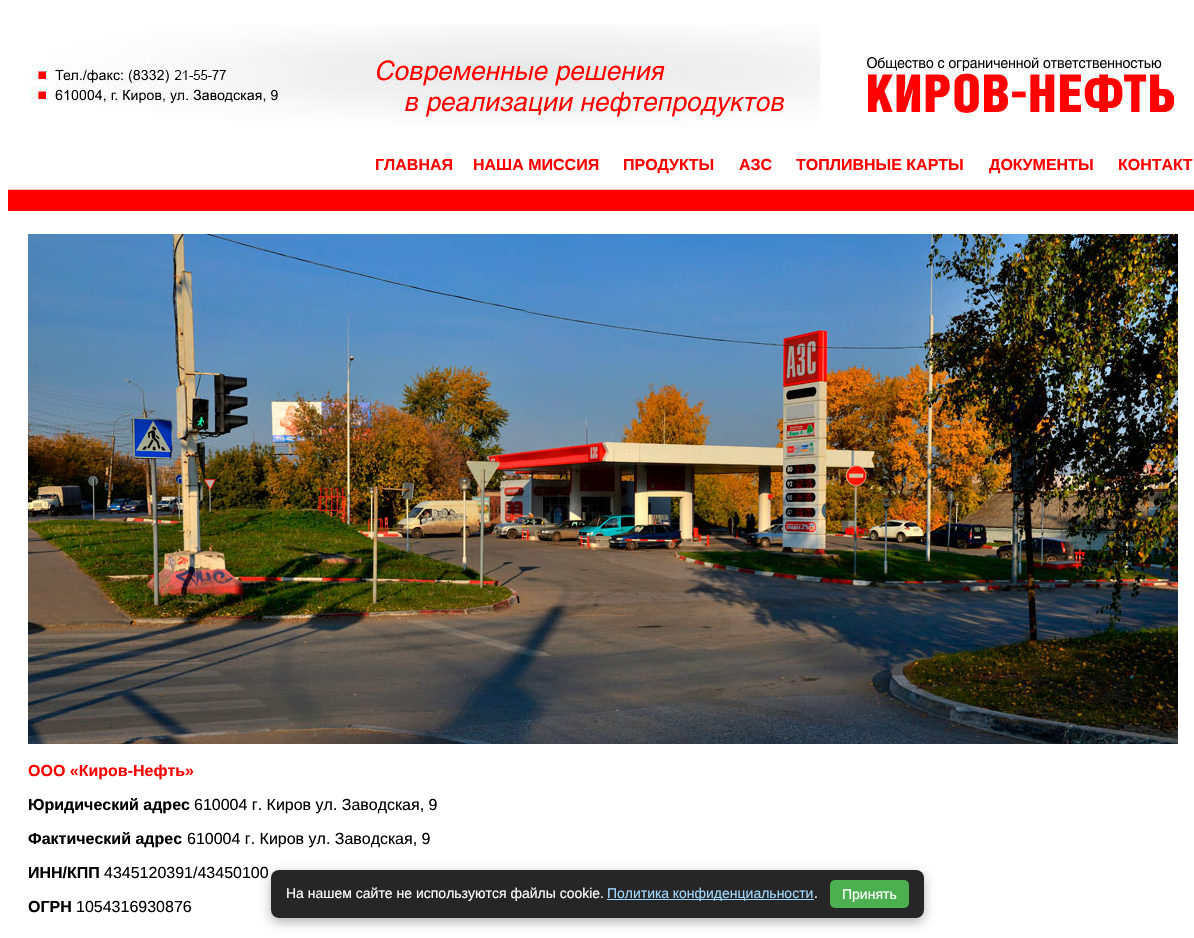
void draw(SkCanvas* canvas) {
  SkPaint paint;
  paint.setAntiAlias(true);
  auto face = [&](const char* family, int weight, float size, bool italic = false) {
    SkFontStyle style(weight, SkFontStyle::kNormal_Width,
      italic ? SkFontStyle::kItalic_Slant : SkFontStyle::kUpright_Slant);
    SkFont result(fontMgr->matchFamilyStyle(family, style), size);
    result.setSubpixel(true);
    return result;
  };
  auto paste = [&](const char* path, float x, float y, float w, float h) {
    auto image = SkImages::DeferredFromEncodedData(SkData::MakeFromFileName(path));
    canvas->drawImageRect(image, SkRect::MakeXYWH(x, y, w, h), SkSamplingOptions());
  };
  auto shape = [&](const char* data, bool evenOdd = false) {
    SkPath result = *SkParsePath::FromSVGString(data);
    if (evenOdd) result.setFillType(SkPathFillType::kEvenOdd);
    return result;
  };
  canvas->clear(0xffffffff);
  paste("img/1.png", 8, 24, 1186, 187);
  paste("img/2.png", 28, 234, 1150, 510);
  canvas->save();
  canvas->clipPath(shape("M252 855H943V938H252ZM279 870H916C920.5 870 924 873.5 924 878V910C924 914.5 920.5 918 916 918H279C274.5 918 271 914.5 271 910V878C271 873.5 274.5 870 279 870Z", true), true);
  paint.setColor(0x4d000000);
  paint.setMaskFilter(SkMaskFilter::MakeBlur(kNormal_SkBlurStyle, 6));
  canvas->drawRoundRect(SkRect::MakeXYWH(271, 874, 653, 48), 8, 8, paint);
  paint.setMaskFilter(nullptr);
  canvas->restore();
  paint.setColor(0xd9000000);
  canvas->drawRoundRect(SkRect::MakeXYWH(271, 870, 653, 48), 8, 8, paint);
  paint.setColor(0xffa0d8ff);
  canvas->drawRect(SkRect::MakeXYWH(607, 899, 207, 1), paint);
  paint.setColor(0xff4caf50);
  canvas->drawRoundRect(SkRect::MakeXYWH(830, 880, 79, 28), 5, 5, paint);
  auto f0 = face("Liberation Sans", 700, 16);
  paint.setColor(0xffff0000);
  {
    const struct { const char* s; float x, y; } items[] = {
      {"ГЛАВНАЯ", 375, 170},
      {"НАША МИССИЯ", 473, 170},
      {"ПРОДУКТЫ", 623, 170},
      {"АЗС", 739, 170},
      {"ТОПЛИВНЫЕ КАРТЫ", 796, 170},
      {"ДОКУМЕНТЫ", 989, 170},
      {"КОНТАКТ", 1118, 170},
      {"ООО «Киров-Нефть»", 28, 776},
    };
    for (auto [s, x, y] : items) {
      canvas->drawString(s, x, y, f0, paint);
    }
  }
  paint.setColor(0xff000000);
  canvas->drawString("Юридический адрес", 28, 810, f0, paint);
  auto f1 = face("Liberation Sans", 400, 16);
  canvas->drawString("610004 г. Киров ул. Заводская, 9", 194, 810, f1, paint);
  canvas->drawString("Фактический адрес", 28, 844, f0, paint);
  canvas->drawString("610004 г. Киров ул. Заводская, 9", 187, 844, f1, paint);
  canvas->drawString("ИНН/КПП", 28, 878, f0, paint);
  canvas->drawString("4345120391/43450100", 104, 878, f1, paint);
  canvas->drawString("ОГРН", 28, 912, f0, paint);
  canvas->drawString("1054316930876", 76, 912, f1, paint);
  auto f2 = face("Liberation Sans", 400, 14);
  paint.setColor(0xffffffff);
  canvas->drawString("На нашем сайте не используются файлы cookie.", 286, 898, f2, paint);
  paint.setColor(0xffa0d8ff);
  canvas->drawString("Политика конфиденциальности", 607, 898, f2, paint);
  paint.setColor(0xffffffff);
  canvas->drawString(".", 814, 898, f2, paint);
  canvas->drawString("Принять", 842, 899, f2, paint);
}
